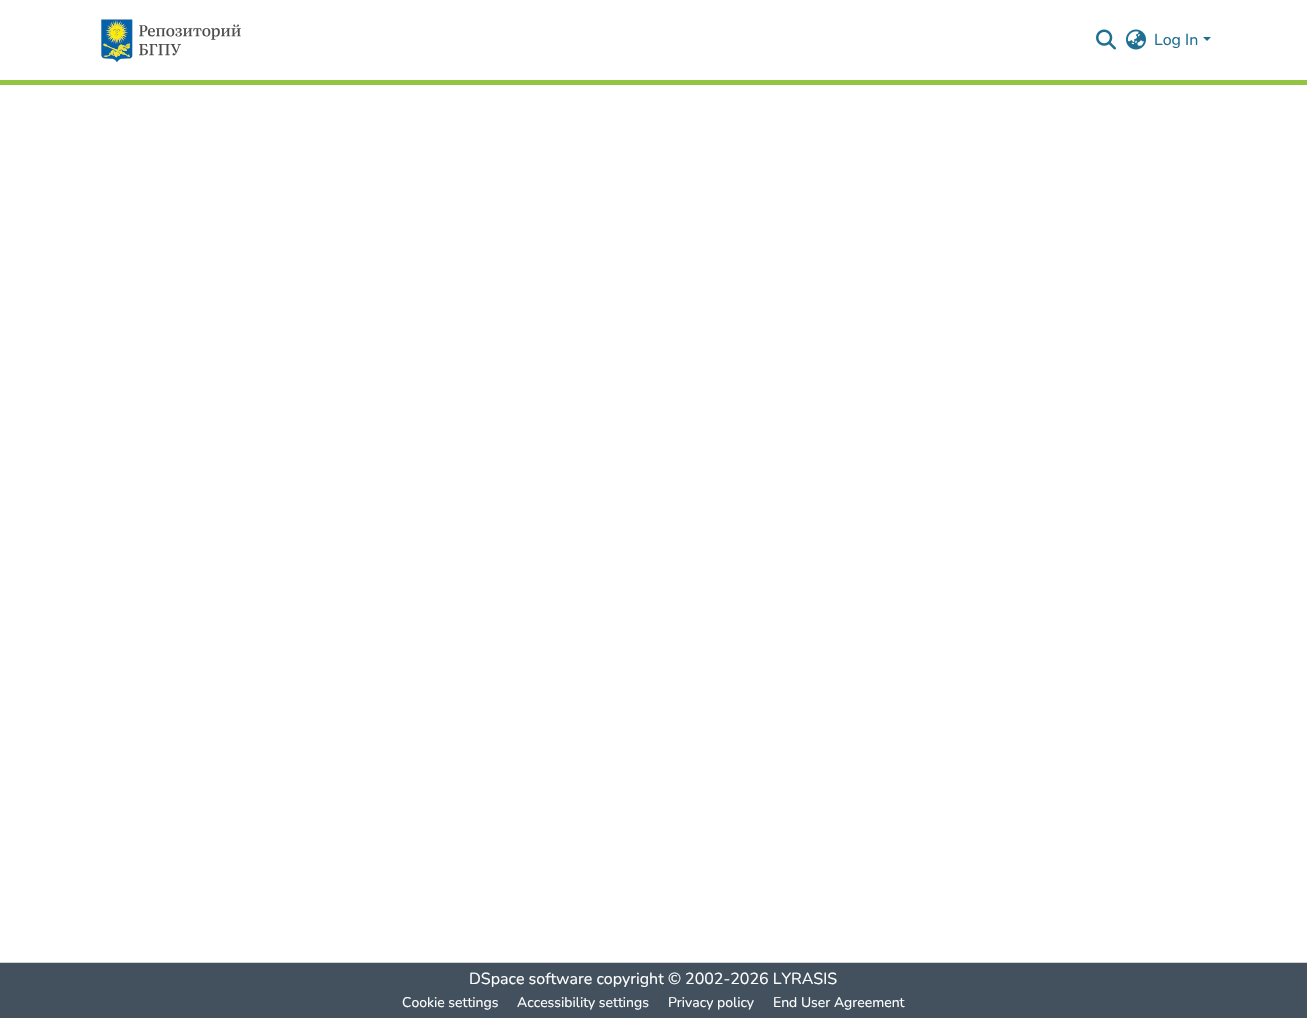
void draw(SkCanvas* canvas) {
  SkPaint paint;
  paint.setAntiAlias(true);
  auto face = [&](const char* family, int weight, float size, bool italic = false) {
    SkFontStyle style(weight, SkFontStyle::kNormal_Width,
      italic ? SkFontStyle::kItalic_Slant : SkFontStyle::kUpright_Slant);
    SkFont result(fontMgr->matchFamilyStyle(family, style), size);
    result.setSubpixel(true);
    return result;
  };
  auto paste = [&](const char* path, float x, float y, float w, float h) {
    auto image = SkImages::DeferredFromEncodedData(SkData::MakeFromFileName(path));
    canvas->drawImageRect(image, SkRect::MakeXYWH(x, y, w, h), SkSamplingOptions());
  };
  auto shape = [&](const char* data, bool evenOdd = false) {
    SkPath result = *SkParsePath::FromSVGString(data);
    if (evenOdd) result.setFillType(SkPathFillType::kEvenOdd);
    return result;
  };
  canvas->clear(0xffffffff);
  paint.setColor(0xff92c642);
  canvas->drawRect(SkRect::MakeXYWH(0, 80, 1307, 5), paint);
  paste("img/1.png", 101, 19, 140, 44);
  paste("img/2.png", 1096, 29, 20, 21);
  paste("img/3.png", 1126, 29, 20, 21);
  paint.setColor(0xff1e6f90);
  canvas->drawPath(shape("M1203 37H1211L1207 41Z"), paint);
  {
    const struct { float x, y, w, h; SkColor color; } items[] = {
      {0, 963, 1307, 55, 0xff43515f},
      {0, 962, 1307, 1, 0xffced4da},
      {507, 991, 1, 23, 0xff495057},
      {658, 991, 1, 23, 0xff495057},
      {763, 991, 1, 23, 0xff495057},
    };
    for (auto [x, y, w, h, color] : items) {
      paint.setColor(color);
      canvas->drawRect(SkRect::MakeXYWH(x, y, w, h), paint);
    }
  }
  auto f0 = face("Nunito", 400, 16);
  paint.setColor(0xff1e6f90);
  canvas->drawString("Log In", 1154, 45, f0, paint);
  paint.setColor(0xffffffff);
  canvas->drawString("DSpace software copyright © 2002-2026 LYRASIS", 469, 984, f0, paint);
  auto f1 = face("Nunito", 400, 14);
  {
    const struct { const char* s; float x, y; } items[] = {
      {"Cookie settings", 402, 1007},
      {"Accessibility settings", 517, 1007},
      {"Privacy policy", 668, 1007},
      {"End User Agreement", 773, 1007},
    };
    for (auto [s, x, y] : items) {
      canvas->drawString(s, x, y, f1, paint);
    }
  }
}
